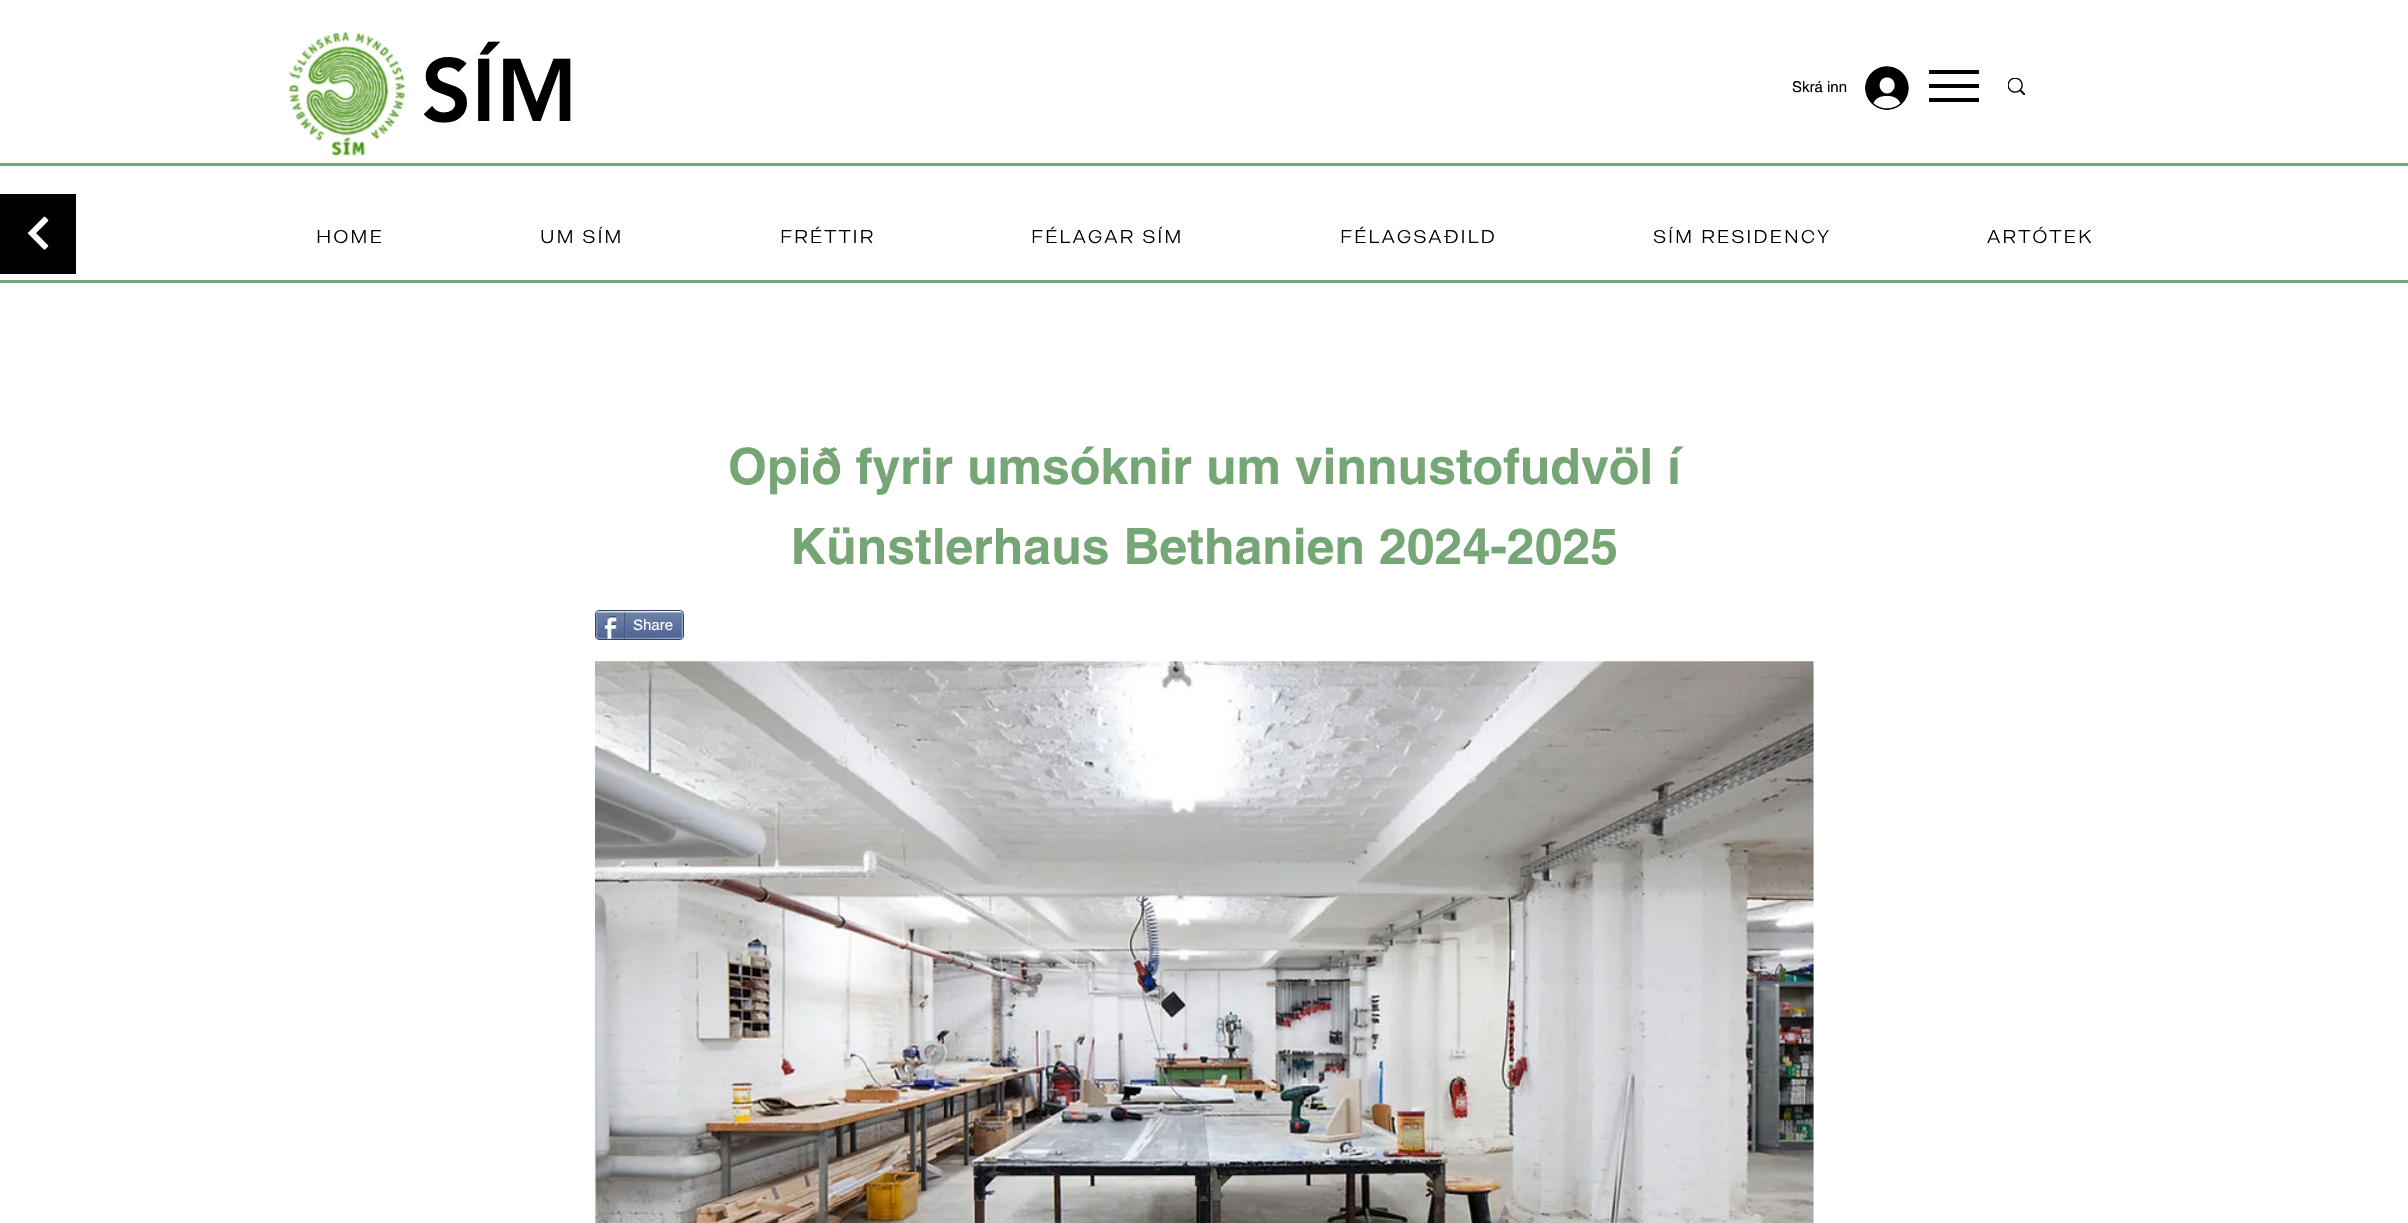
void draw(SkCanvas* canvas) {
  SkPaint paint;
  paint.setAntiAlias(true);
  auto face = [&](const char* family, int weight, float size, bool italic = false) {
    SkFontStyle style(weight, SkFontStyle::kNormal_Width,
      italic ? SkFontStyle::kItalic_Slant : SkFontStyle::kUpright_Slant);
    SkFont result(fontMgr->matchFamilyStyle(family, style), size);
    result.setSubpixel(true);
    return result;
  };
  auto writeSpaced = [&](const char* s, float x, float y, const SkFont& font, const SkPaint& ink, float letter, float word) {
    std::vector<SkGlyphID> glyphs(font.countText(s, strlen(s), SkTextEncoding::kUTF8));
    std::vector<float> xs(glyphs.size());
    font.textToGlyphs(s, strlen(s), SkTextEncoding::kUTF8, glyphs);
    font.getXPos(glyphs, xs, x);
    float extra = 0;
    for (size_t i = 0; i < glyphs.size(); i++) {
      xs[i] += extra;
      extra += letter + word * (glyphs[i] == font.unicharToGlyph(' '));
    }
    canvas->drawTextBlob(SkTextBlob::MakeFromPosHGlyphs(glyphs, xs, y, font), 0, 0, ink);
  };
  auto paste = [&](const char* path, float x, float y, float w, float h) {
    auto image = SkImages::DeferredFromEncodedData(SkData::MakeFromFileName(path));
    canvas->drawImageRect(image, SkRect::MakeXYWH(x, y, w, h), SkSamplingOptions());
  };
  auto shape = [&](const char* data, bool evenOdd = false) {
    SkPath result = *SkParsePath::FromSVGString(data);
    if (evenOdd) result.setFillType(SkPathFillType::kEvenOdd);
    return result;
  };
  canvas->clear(0xffffffff);
  paste("img/1.png", 288, 32, 118, 124);
  paste("img/2.png", 1865, 66, 44, 44);
  {
    const struct { float x, y, w, h; SkColor color; } items[] = {
      {1929, 98, 50, 4, 0xff000000},
      {1929, 70, 50, 4, 0xff000000},
      {1929, 84, 50, 4, 0xff000000},
    };
    for (auto [x, y, w, h, color] : items) {
      paint.setColor(color);
      canvas->drawRect(SkRect::MakeXYWH(x, y, w, h), paint);
    }
  }
  paste("img/3.png", 2008, 78, 17, 17);
  {
    const struct { float x, y, w, h; SkColor color; } items[] = {
      {0, 163, 2408, 3, 0xff77a676},
      {0, 280, 2408, 3, 0xff77a676},
      {0, 194, 76, 80, 0xff000000},
    };
    for (auto [x, y, w, h, color] : items) {
      paint.setColor(color);
      canvas->drawRect(SkRect::MakeXYWH(x, y, w, h), paint);
    }
  }
  paste("img/4.png", 27, 216, 22, 34);
  paint.setStroke(true);
  paint.setStrokeWidth(1);
  paint.setColor(0xff2d4565);
  canvas->drawRoundRect(SkRect::MakeXYWH(595.5f, 610.5f, 88, 29), 3.5f, 3.5f, paint);
  paste("img/5.png", 596, 612, 87, 27);
  paint.setStrokeWidth(1.2f);
  paint.setColor(0xff9aabc6);
  canvas->drawPath(shape("M597.5 612.5L599 612L681.5 612.5"), paint);
  paint.setColor(0xff6f83ad);
  canvas->drawPath(shape("M681.5 612.5L682 614V636L681.5 637.5"), paint);
  paint.setColor(0xff6176a3);
  canvas->drawPath(shape("M681.5 637.5L612.5 638H599L597.5 637.5"), paint);
  paint.setColor(0xff6f83ad);
  canvas->drawPath(shape("M597.5 637.5L597 636V614L597.5 612.5"), paint);
  paste("img/6.png", 604, 616, 13, 23);
  paint.setStroke(false);
  paint.setColor(0xff425e85);
  canvas->drawRect(SkRect::MakeXYWH(624, 613, 1, 26), paint);
  paint.setColor(0xff6176a3);
  canvas->drawRect(SkRect::MakeXYWH(625, 613, 1, 25), paint);
  paste("img/7.png", 595, 661, 1219, 562);
  auto f0 = face("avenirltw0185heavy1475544", 900, 88);
  paint.setColor(0xff000000);
  canvas->drawString("SÍM", 421, 121, f0, paint);
  auto f1 = face("helvetica", 400, 15);
  canvas->drawString("Skrá inn", 1792, 92, f1, paint);
  auto f2 = face("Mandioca", 400, 18.75f);
  {
    const struct { const char* s; float x, y; } items[] = {
      {"HOME", 316, 243},
      {"UM SÍM", 540, 243},
      {"FRÉTTIR", 780, 243},
      {"FÉLAGAR SÍM", 1031, 243},
      {"FÉLAGSAÐILD", 1340, 243},
      {"SÍM RESIDENCY", 1653, 243},
      {"ARTÓTEK", 1987, 243},
    };
    for (auto [s, x, y] : items) {
      writeSpaced(s, x, y, f2, paint, 1.9f, 0);
    }
  }
  auto f3 = face("helvetica", 700, 50);
  paint.setColor(0xff77a676);
  canvas->drawString("Opið fyrir umsóknir um vinnustofudvöl í", 728, 484, f3, paint);
  canvas->drawString("Künstlerhaus Bethanien 2024-2025", 790, 564, f3, paint);
  auto f4 = face("Liberation Sans", 400, 15);
  paint.setColor(0xffffffff);
  canvas->drawString("Share", 633, 630, f4, paint);
}
